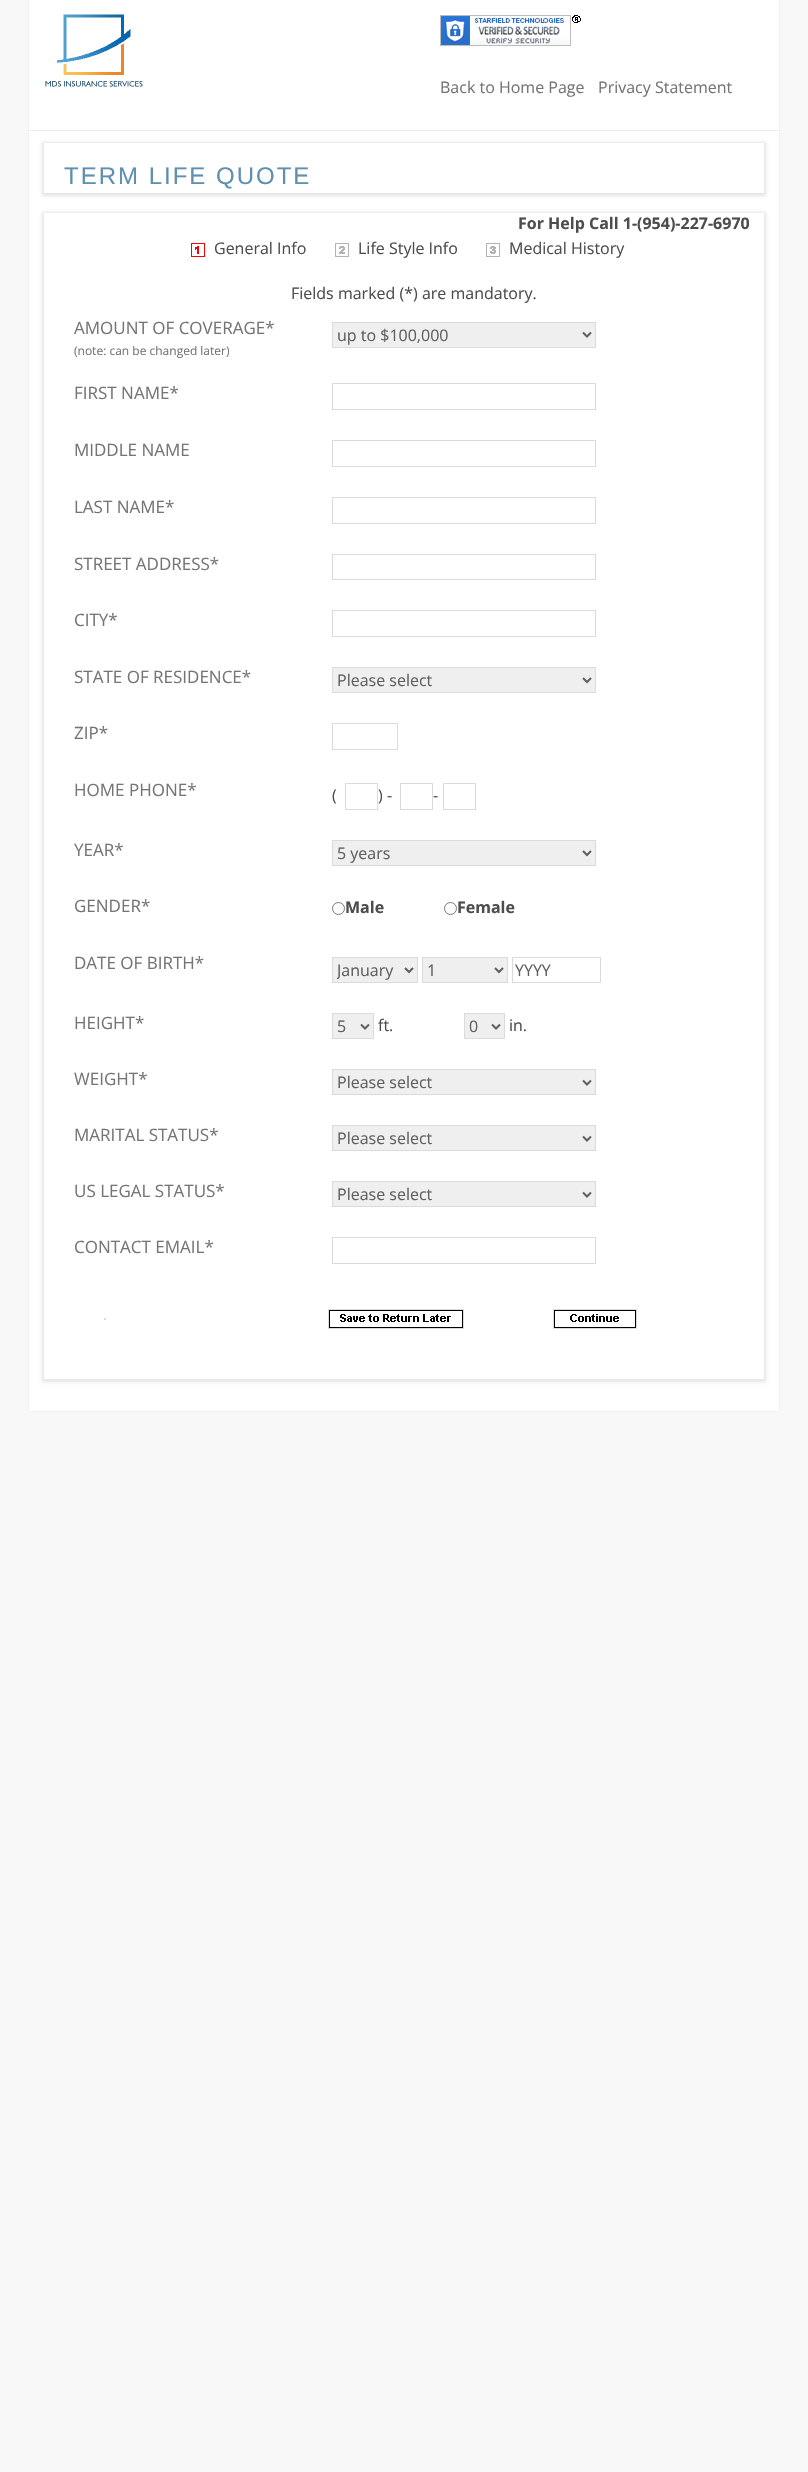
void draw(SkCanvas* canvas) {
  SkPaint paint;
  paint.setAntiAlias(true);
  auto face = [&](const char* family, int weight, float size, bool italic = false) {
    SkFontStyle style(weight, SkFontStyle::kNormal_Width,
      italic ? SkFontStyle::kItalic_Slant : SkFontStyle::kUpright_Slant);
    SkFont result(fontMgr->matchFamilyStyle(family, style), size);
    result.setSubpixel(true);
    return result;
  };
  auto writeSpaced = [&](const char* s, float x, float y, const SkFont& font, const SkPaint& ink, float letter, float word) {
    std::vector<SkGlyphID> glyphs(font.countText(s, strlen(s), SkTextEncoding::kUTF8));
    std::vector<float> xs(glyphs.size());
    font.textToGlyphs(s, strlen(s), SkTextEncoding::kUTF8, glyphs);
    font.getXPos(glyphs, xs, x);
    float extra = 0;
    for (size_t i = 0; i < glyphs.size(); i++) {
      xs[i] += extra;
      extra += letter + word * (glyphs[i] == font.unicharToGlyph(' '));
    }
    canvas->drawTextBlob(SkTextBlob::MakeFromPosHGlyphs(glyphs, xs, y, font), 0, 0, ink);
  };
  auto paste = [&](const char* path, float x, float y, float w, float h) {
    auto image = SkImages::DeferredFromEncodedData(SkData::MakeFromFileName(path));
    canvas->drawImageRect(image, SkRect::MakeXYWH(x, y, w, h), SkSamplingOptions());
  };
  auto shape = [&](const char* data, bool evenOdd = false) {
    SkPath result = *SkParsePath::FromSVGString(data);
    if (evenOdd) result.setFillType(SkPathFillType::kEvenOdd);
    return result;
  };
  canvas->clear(0xfff8f8f8);
  paint.setColor(0x1a636363);
  paint.setMaskFilter(SkMaskFilter::MakeBlur(kNormal_SkBlurStyle, 1.5f));
  canvas->drawRect(SkRect::MakeXYWH(29, 131, 750, 1280), paint);
  paint.setMaskFilter(nullptr);
  paint.setColor(0xffffffff);
  canvas->drawRect(SkRect::MakeXYWH(29, 131, 750, 1280), paint);
  paint.setColor(0x1a636363);
  paint.setMaskFilter(SkMaskFilter::MakeBlur(kNormal_SkBlurStyle, 1.5f));
  canvas->drawRect(SkRect::MakeXYWH(29, 0, 750, 130), paint);
  paint.setMaskFilter(nullptr);
  paint.setColor(0xffffffff);
  canvas->drawRect(SkRect::MakeXYWH(29, 0, 750, 130), paint);
  paste("img/1.png", 45, 14, 98, 73);
  paste("img/2.png", 440, 15, 141, 31);
  canvas->save();
  canvas->clipPath(shape("M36 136H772V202H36ZM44 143H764V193H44Z", true), true);
  paint.setColor(0x1a000000);
  paint.setMaskFilter(SkMaskFilter::MakeBlur(kNormal_SkBlurStyle, 1.5f));
  canvas->drawRect(SkRect::MakeXYWH(42, 142, 724, 54), paint);
  paint.setMaskFilter(nullptr);
  canvas->restore();
  canvas->save();
  canvas->clipPath(shape("M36 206H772V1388H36ZM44 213H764V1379H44Z", true), true);
  paint.setMaskFilter(SkMaskFilter::MakeBlur(kNormal_SkBlurStyle, 1.5f));
  canvas->drawRect(SkRect::MakeXYWH(42, 212, 724, 1170), paint);
  paint.setMaskFilter(nullptr);
  canvas->restore();
  paste("img/3.png", 191, 243, 14, 14);
  paste("img/4.png", 335, 243, 14, 14);
  paste("img/5.png", 486, 243, 14, 14);
  paint.setColor(0xffefefef);
  canvas->drawRect(SkRect::MakeXYWH(332.5f, 322.5f, 263, 25), paint);
  paint.setStroke(true);
  paint.setStrokeWidth(1);
  paint.setColor(0xffdbdbdb);
  canvas->drawRect(SkRect::MakeXYWH(332.5f, 322.5f, 263, 25), paint);
  paint.setStrokeWidth(2);
  paint.setColor(0xff5f5f5f);
  canvas->drawPath(shape("M583 332.5L587 336.5L591 332.5"), paint);
  paint.setStrokeWidth(1);
  paint.setColor(0xffdbdbdb);
  canvas->drawRect(SkRect::MakeXYWH(332.5f, 383.5f, 263, 26), paint);
  canvas->drawRect(SkRect::MakeXYWH(332.5f, 440.5f, 263, 26), paint);
  canvas->drawRect(SkRect::MakeXYWH(332.5f, 497.5f, 263, 26), paint);
  canvas->drawRect(SkRect::MakeXYWH(332.5f, 554.5f, 263, 25), paint);
  canvas->drawRect(SkRect::MakeXYWH(332.5f, 610.5f, 263, 26), paint);
  paint.setStroke(false);
  paint.setColor(0xffefefef);
  canvas->drawRect(SkRect::MakeXYWH(332.5f, 667.5f, 263, 25), paint);
  paint.setStroke(true);
  paint.setColor(0xffdbdbdb);
  canvas->drawRect(SkRect::MakeXYWH(332.5f, 667.5f, 263, 25), paint);
  paint.setStrokeWidth(2);
  paint.setColor(0xff5f5f5f);
  canvas->drawPath(shape("M583 678L587 682L591 678"), paint);
  paint.setStrokeWidth(1);
  paint.setColor(0xffdbdbdb);
  canvas->drawRect(SkRect::MakeXYWH(332.5f, 723.5f, 65, 26), paint);
  canvas->drawRect(SkRect::MakeXYWH(345.5f, 783.5f, 32, 26), paint);
  canvas->drawRect(SkRect::MakeXYWH(400.5f, 783.5f, 32, 26), paint);
  canvas->drawRect(SkRect::MakeXYWH(443.5f, 783.5f, 32, 26), paint);
  paint.setStroke(false);
  paint.setColor(0xffefefef);
  canvas->drawRect(SkRect::MakeXYWH(332.5f, 840.5f, 263, 25), paint);
  paint.setStroke(true);
  paint.setColor(0xffdbdbdb);
  canvas->drawRect(SkRect::MakeXYWH(332.5f, 840.5f, 263, 25), paint);
  paint.setStrokeWidth(2);
  paint.setColor(0xff5f5f5f);
  canvas->drawPath(shape("M583 851L587 855L591 851"), paint);
  paint.setStrokeWidth(1);
  paint.setColor(0xff767676);
  canvas->drawCircle(338.5f, 908.5f, 6, paint);
  canvas->drawCircle(450.5f, 908.5f, 6, paint);
  paint.setStroke(false);
  paint.setColor(0xffefefef);
  canvas->drawRect(SkRect::MakeXYWH(332.5f, 957.5f, 85, 25), paint);
  paint.setStroke(true);
  paint.setColor(0xffdbdbdb);
  canvas->drawRect(SkRect::MakeXYWH(332.5f, 957.5f, 85, 25), paint);
  paint.setStrokeWidth(2);
  paint.setColor(0xff5f5f5f);
  canvas->drawPath(shape("M405 968L409 972L413 968"), paint);
  paint.setStroke(false);
  paint.setColor(0xffefefef);
  canvas->drawRect(SkRect::MakeXYWH(422.5f, 957.5f, 85, 25), paint);
  paint.setStroke(true);
  paint.setStrokeWidth(1);
  paint.setColor(0xffdbdbdb);
  canvas->drawRect(SkRect::MakeXYWH(422.5f, 957.5f, 85, 25), paint);
  paint.setStrokeWidth(2);
  paint.setColor(0xff5f5f5f);
  canvas->drawPath(shape("M495 968L499 972L503 968"), paint);
  paint.setStrokeWidth(1);
  paint.setColor(0xffdbdbdb);
  canvas->drawRect(SkRect::MakeXYWH(512.5f, 957.5f, 88, 25), paint);
  paint.setStroke(false);
  paint.setColor(0xffefefef);
  canvas->drawRect(SkRect::MakeXYWH(332.5f, 1013.5f, 41, 25), paint);
  paint.setStroke(true);
  paint.setColor(0xffdbdbdb);
  canvas->drawRect(SkRect::MakeXYWH(332.5f, 1013.5f, 41, 25), paint);
  paint.setStrokeWidth(2);
  paint.setColor(0xff5f5f5f);
  canvas->drawPath(shape("M361 1024.5L365 1028.5L369 1024.5"), paint);
  paint.setStroke(false);
  paint.setColor(0xffefefef);
  canvas->drawRect(SkRect::MakeXYWH(464.5f, 1013.5f, 40, 25), paint);
  paint.setStroke(true);
  paint.setStrokeWidth(1);
  paint.setColor(0xffdbdbdb);
  canvas->drawRect(SkRect::MakeXYWH(464.5f, 1013.5f, 40, 25), paint);
  paint.setStrokeWidth(2);
  paint.setColor(0xff5f5f5f);
  canvas->drawPath(shape("M492 1024.5L496 1028.5L500 1024.5"), paint);
  paint.setStroke(false);
  paint.setColor(0xffefefef);
  canvas->drawRect(SkRect::MakeXYWH(332.5f, 1069.5f, 263, 25), paint);
  paint.setStroke(true);
  paint.setStrokeWidth(1);
  paint.setColor(0xffdbdbdb);
  canvas->drawRect(SkRect::MakeXYWH(332.5f, 1069.5f, 263, 25), paint);
  paint.setStrokeWidth(2);
  paint.setColor(0xff5f5f5f);
  canvas->drawPath(shape("M583 1080.5L587 1084.5L591 1080.5"), paint);
  paint.setStroke(false);
  paint.setColor(0xffefefef);
  canvas->drawRect(SkRect::MakeXYWH(332.5f, 1125.5f, 263, 25), paint);
  paint.setStroke(true);
  paint.setStrokeWidth(1);
  paint.setColor(0xffdbdbdb);
  canvas->drawRect(SkRect::MakeXYWH(332.5f, 1125.5f, 263, 25), paint);
  paint.setStrokeWidth(2);
  paint.setColor(0xff5f5f5f);
  canvas->drawPath(shape("M583 1136.5L587 1140.5L591 1136.5"), paint);
  paint.setStroke(false);
  paint.setColor(0xffefefef);
  canvas->drawRect(SkRect::MakeXYWH(332.5f, 1181.5f, 263, 25), paint);
  paint.setStroke(true);
  paint.setStrokeWidth(1);
  paint.setColor(0xffdbdbdb);
  canvas->drawRect(SkRect::MakeXYWH(332.5f, 1181.5f, 263, 25), paint);
  paint.setStrokeWidth(2);
  paint.setColor(0xff5f5f5f);
  canvas->drawPath(shape("M583 1192.5L587 1196.5L591 1192.5"), paint);
  paint.setStrokeWidth(1);
  paint.setColor(0xffdbdbdb);
  canvas->drawRect(SkRect::MakeXYWH(332.5f, 1237.5f, 263, 26), paint);
  paint.setStroke(false);
  canvas->drawRect(SkRect::MakeXYWH(104, 1318, 2, 2), paint);
  paint.setStroke(true);
  canvas->drawRect(SkRect::MakeXYWH(328.5f, 1309.5f, 135, 19), paint);
  paste("img/6.png", 329, 1310, 134, 18);
  canvas->drawRect(SkRect::MakeXYWH(553.5f, 1309.5f, 83, 19), paint);
  paste("img/7.png", 554, 1310, 82, 18);
  auto f0 = face("Open Sans", 400, 16);
  paint.setStroke(false);
  paint.setColor(0xff757575);
  canvas->drawString("Back to Home Page", 440, 93, f0, paint);
  canvas->drawString("Privacy Statement", 598, 93, f0, paint);
  auto f1 = face("Liberation Sans", 400, 24);
  paint.setColor(0xff5e90af);
  writeSpaced("TERM LIFE QUOTE", 64, 184, f1, paint, 2, 0);
  auto f2 = face("Open Sans", 700, 16);
  paint.setColor(0xff4d4d4d);
  canvas->drawString("For Help Call 1-(954)-227-6970", 518, 229, f2, paint);
  {
    const struct { const char* s; float x, y; } items[] = {
      {"General Info", 214, 254},
      {"Life Style Info", 358, 254},
      {"Medical History", 509, 254},
      {"Fields marked (*) are mandatory.", 291, 299},
    };
    for (auto [s, x, y] : items) {
      canvas->drawString(s, x, y, f0, paint);
    }
  }
  auto f3 = face("Open Sans", 400, 17);
  paint.setColor(0xff757575);
  canvas->drawString("AMOUNT OF COVERAGE*", 74, 334, f3, paint);
  auto f4 = face("Open Sans", 400, 12);
  canvas->drawString("(note: can be changed later)", 74, 355, f4, paint);
  paint.setColor(0xff5f5f5f);
  canvas->drawString("up to $100,000", 337, 341, f0, paint);
  paint.setColor(0xff757575);
  {
    const struct { const char* s; float x, y; } items[] = {
      {"FIRST NAME*", 74, 399},
      {"MIDDLE NAME", 74, 456},
      {"LAST NAME*", 74, 513},
      {"STREET ADDRESS*", 74, 570},
      {"CITY*", 74, 626},
      {"STATE OF RESIDENCE*", 74, 683},
    };
    for (auto [s, x, y] : items) {
      canvas->drawString(s, x, y, f3, paint);
    }
  }
  paint.setColor(0xff5f5f5f);
  canvas->drawString("Please select", 337, 686, f0, paint);
  paint.setColor(0xff757575);
  canvas->drawString("ZIP*", 74, 739, f3, paint);
  canvas->drawString("HOME PHONE*", 74, 796, f3, paint);
  paint.setColor(0xff4d4d4d);
  {
    const struct { const char* s; float x, y; } items[] = {
      {"(", 332, 801},
      {") -", 378, 801},
      {"-", 433, 801},
    };
    for (auto [s, x, y] : items) {
      canvas->drawString(s, x, y, f0, paint);
    }
  }
  paint.setColor(0xff757575);
  canvas->drawString("YEAR*", 74, 856, f3, paint);
  paint.setColor(0xff5f5f5f);
  canvas->drawString("5 years", 337, 859, f0, paint);
  paint.setColor(0xff757575);
  canvas->drawString("GENDER*", 74, 912, f3, paint);
  paint.setColor(0xff4d4d4d);
  canvas->drawString("Male", 345, 913, f2, paint);
  canvas->drawString("Female", 457, 913, f2, paint);
  paint.setColor(0xff757575);
  canvas->drawString("DATE OF BIRTH*", 74, 969, f3, paint);
  canvas->save();
  canvas->clipRect(SkRect::MakeXYWH(337, 958, 64, 24));
  paint.setColor(0xff5f5f5f);
  canvas->drawString("January", 337, 976, f0, paint);
  canvas->restore();
  canvas->drawString("1", 427, 976, f0, paint);
  canvas->drawString("YYYY", 515, 976, f0, paint);
  paint.setColor(0xff757575);
  canvas->drawString("HEIGHT*", 74, 1029, f3, paint);
  paint.setColor(0xff5f5f5f);
  canvas->drawString("5", 337, 1032, f0, paint);
  paint.setColor(0xff4d4d4d);
  canvas->drawString("ft.", 378, 1031, f0, paint);
  paint.setColor(0xff5f5f5f);
  canvas->drawString("0", 469, 1032, f0, paint);
  paint.setColor(0xff4d4d4d);
  canvas->drawString("in.", 509, 1031, f0, paint);
  paint.setColor(0xff757575);
  canvas->drawString("WEIGHT*", 74, 1085, f3, paint);
  paint.setColor(0xff5f5f5f);
  canvas->drawString("Please select", 337, 1088, f0, paint);
  paint.setColor(0xff757575);
  canvas->drawString("MARITAL STATUS*", 74, 1141, f3, paint);
  paint.setColor(0xff5f5f5f);
  canvas->drawString("Please select", 337, 1144, f0, paint);
  paint.setColor(0xff757575);
  canvas->drawString("US LEGAL STATUS*", 74, 1197, f3, paint);
  paint.setColor(0xff5f5f5f);
  canvas->drawString("Please select", 337, 1200, f0, paint);
  paint.setColor(0xff757575);
  canvas->drawString("CONTACT EMAIL*", 74, 1253, f3, paint);
}
